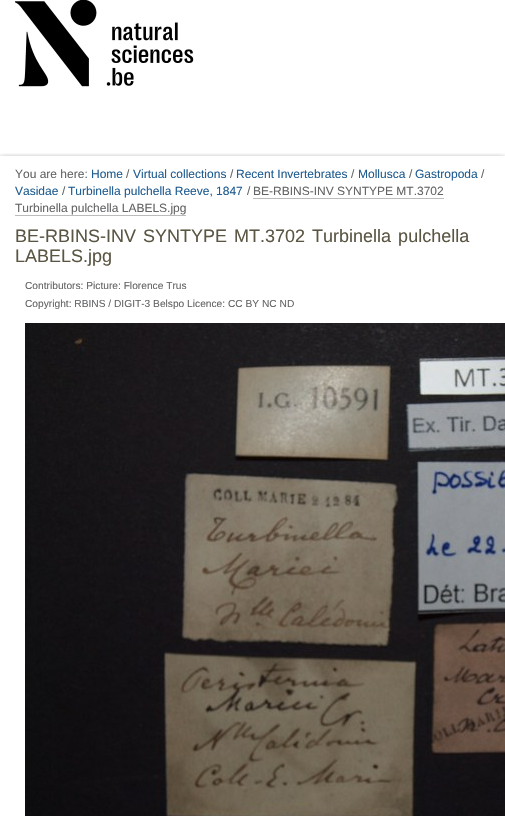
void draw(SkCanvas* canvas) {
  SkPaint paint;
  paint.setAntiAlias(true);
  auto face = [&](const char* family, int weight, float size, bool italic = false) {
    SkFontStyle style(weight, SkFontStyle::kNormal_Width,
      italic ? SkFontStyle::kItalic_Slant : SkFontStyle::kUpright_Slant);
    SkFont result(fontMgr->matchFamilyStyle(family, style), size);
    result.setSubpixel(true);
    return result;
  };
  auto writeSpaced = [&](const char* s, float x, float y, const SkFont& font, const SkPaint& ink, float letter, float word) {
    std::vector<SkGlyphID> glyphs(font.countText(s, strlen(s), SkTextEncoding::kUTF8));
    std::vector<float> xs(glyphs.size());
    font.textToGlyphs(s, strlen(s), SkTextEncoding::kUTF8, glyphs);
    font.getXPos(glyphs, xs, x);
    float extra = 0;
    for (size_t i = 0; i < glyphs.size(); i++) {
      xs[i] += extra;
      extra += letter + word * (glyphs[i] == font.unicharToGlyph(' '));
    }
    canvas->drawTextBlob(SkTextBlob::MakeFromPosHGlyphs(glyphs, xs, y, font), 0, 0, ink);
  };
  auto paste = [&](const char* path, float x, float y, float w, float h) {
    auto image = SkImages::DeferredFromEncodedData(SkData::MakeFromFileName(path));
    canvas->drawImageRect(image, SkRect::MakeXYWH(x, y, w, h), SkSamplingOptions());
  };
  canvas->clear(0xffffffff);
  paste("img/1.png", 15, 0, 179, 87);
  canvas->save();
  canvas->clipRect(SkRect::MakeXYWH(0, 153, 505, 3));
  paint.setColor(0xff000000);
  paint.setMaskFilter(SkMaskFilter::MakeBlur(kNormal_SkBlurStyle, 3.5f));
  canvas->drawRect(SkRect::MakeXYWH(0, 160, 505, 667), paint);
  paint.setMaskFilter(nullptr);
  canvas->restore();
  paint.setColor(0xffbbbbbb);
  canvas->drawRect(SkRect::MakeXYWH(253, 198, 191, 1), paint);
  canvas->drawRect(SkRect::MakeXYWH(15, 215, 171, 1), paint);
  paste("img/2.png", 25, 323, 480, 493);
  auto f0 = face("Liberation Sans", 400, 12);
  paint.setColor(0xff636466);
  canvas->drawString("You are here:", 15, 178, f0, paint);
  paint.setColor(0xff205c90);
  canvas->drawString("Home", 91, 178, f0, paint);
  paint.setColor(0xff636466);
  canvas->drawString("/", 126, 178, f0, paint);
  paint.setColor(0xff205c90);
  canvas->drawString("Virtual collections", 133, 178, f0, paint);
  paint.setColor(0xff636466);
  canvas->drawString("/", 230, 178, f0, paint);
  paint.setColor(0xff205c90);
  canvas->drawString("Recent Invertebrates", 236, 178, f0, paint);
  paint.setColor(0xff636466);
  canvas->drawString("/", 351, 178, f0, paint);
  paint.setColor(0xff205c90);
  canvas->drawString("Mollusca", 358, 178, f0, paint);
  paint.setColor(0xff636466);
  canvas->drawString("/", 409, 178, f0, paint);
  paint.setColor(0xff205c90);
  canvas->drawString("Gastropoda", 415, 178, f0, paint);
  paint.setColor(0xff636466);
  canvas->drawString("/", 481, 178, f0, paint);
  paint.setColor(0xff205c90);
  canvas->drawString("Vasidae", 15, 195, f0, paint);
  paint.setColor(0xff636466);
  canvas->drawString("/", 62, 195, f0, paint);
  paint.setColor(0xff205c90);
  canvas->drawString("Turbinella pulchella Reeve, 1847", 68, 195, f0, paint);
  paint.setColor(0xff636466);
  {
    const struct { const char* s; float x, y; } items[] = {
      {"/", 247, 195},
      {"BE-RBINS-INV SYNTYPE MT.3702", 253, 195},
      {"Turbinella pulchella LABELS.jpg", 15, 212},
    };
    for (auto [s, x, y] : items) {
      canvas->drawString(s, x, y, f0, paint);
    }
  }
  auto f1 = face("Liberation Sans", 400, 18);
  paint.setColor(0xff5b5644);
  writeSpaced("BE-RBINS-INV SYNTYPE MT.3702 Turbinella pulchella", 15, 242, f1, paint, 0, 2);
  canvas->drawString("LABELS.jpg", 15, 262, f1, paint);
  auto f2 = face("Liberation Sans", 400, 10.2f);
  paint.setColor(0xff636466);
  canvas->drawString("Contributors: Picture: Florence Trus", 25, 289, f2, paint);
  canvas->drawString("Copyright: RBINS / DIGIT-3 Belspo Licence: CC BY NC ND", 25, 307, f2, paint);
}
